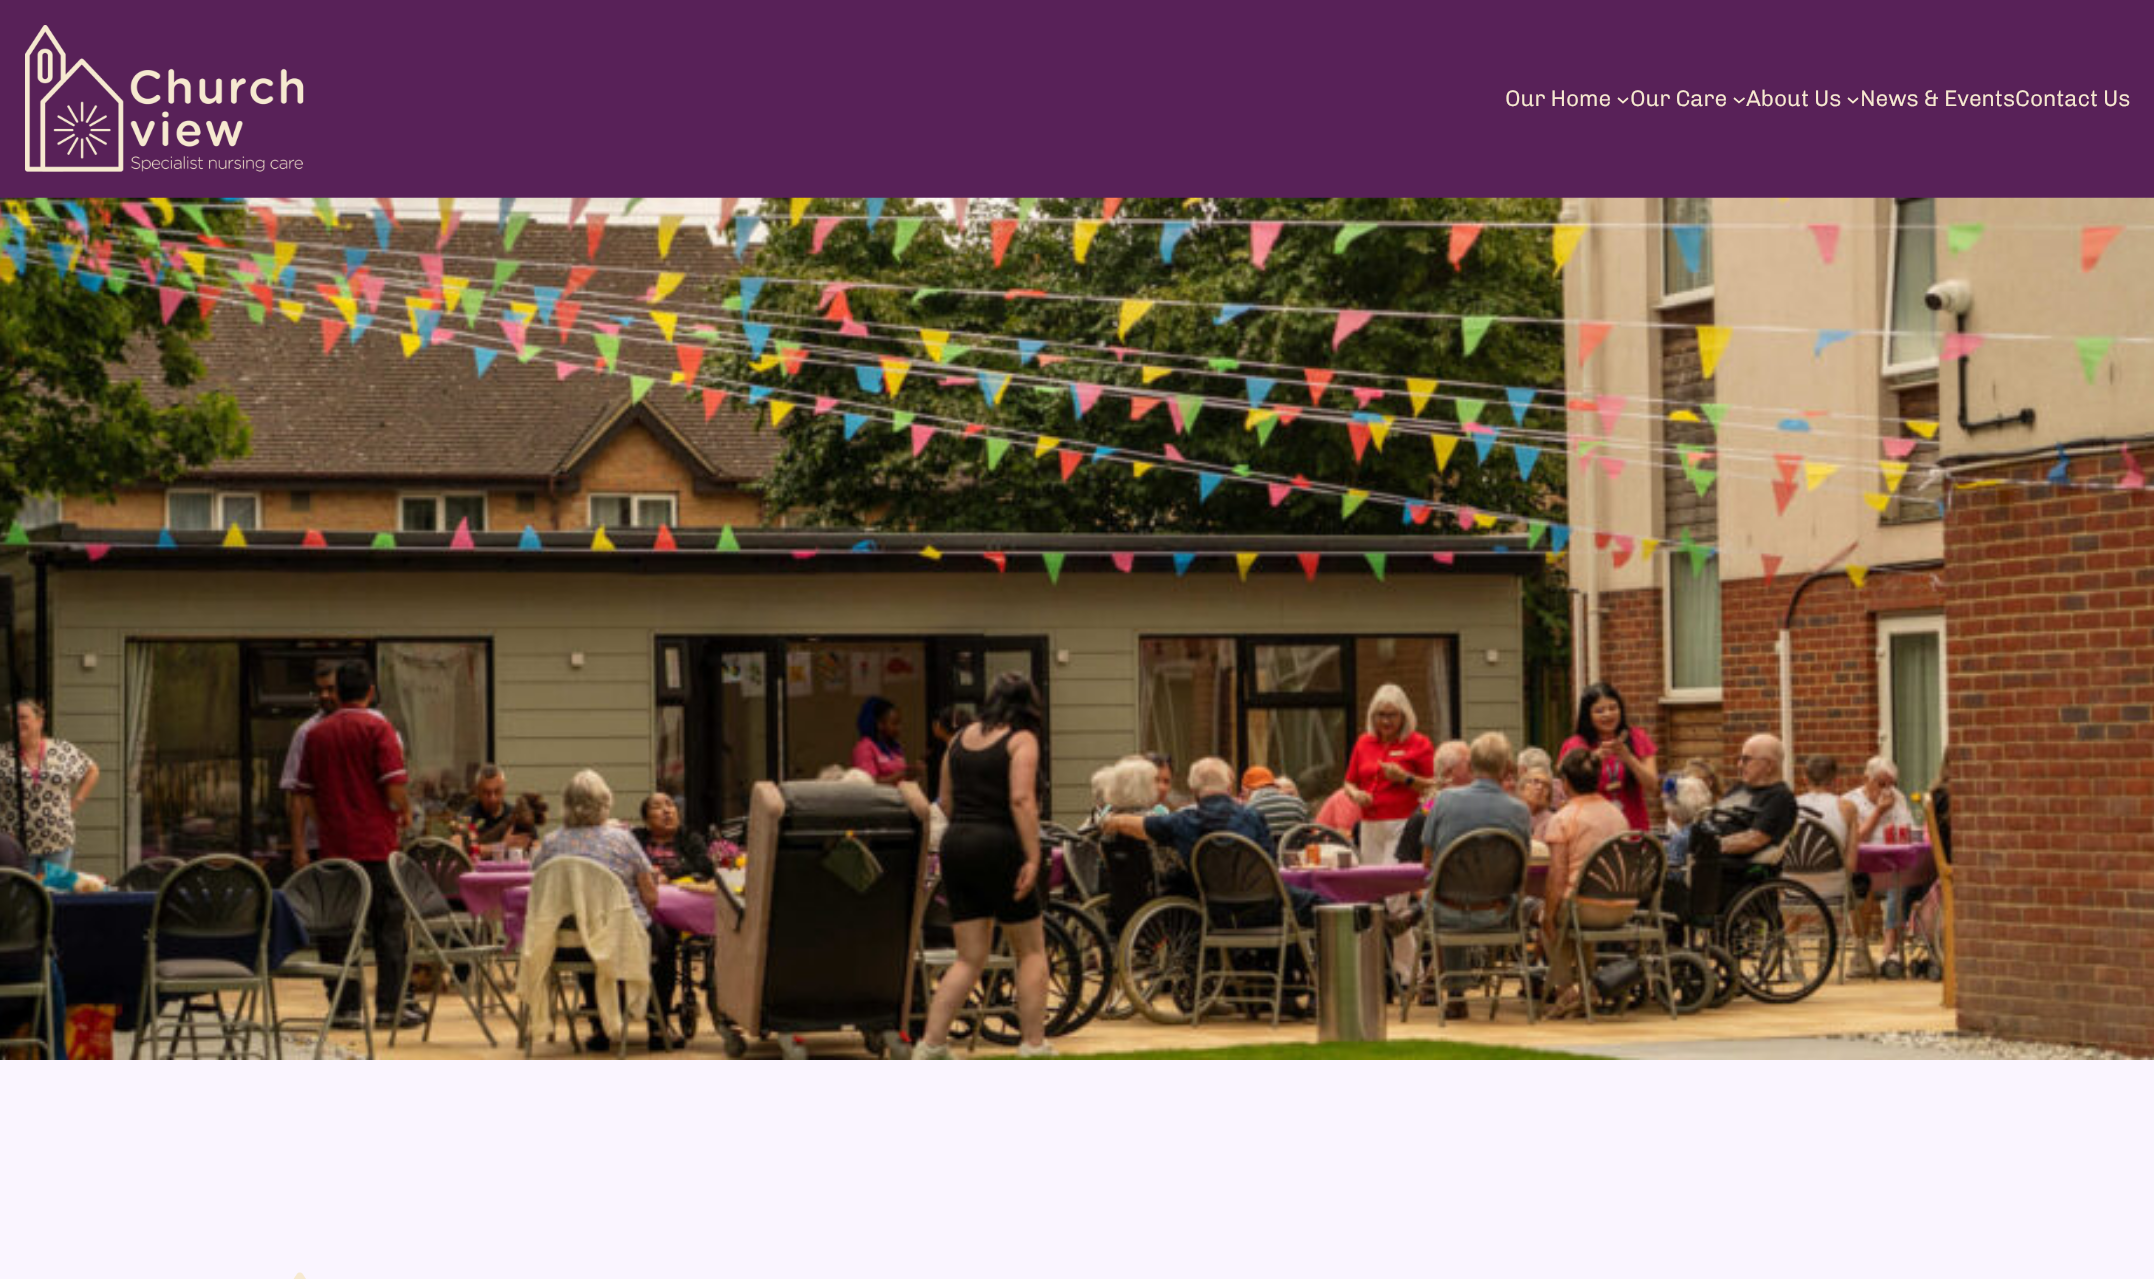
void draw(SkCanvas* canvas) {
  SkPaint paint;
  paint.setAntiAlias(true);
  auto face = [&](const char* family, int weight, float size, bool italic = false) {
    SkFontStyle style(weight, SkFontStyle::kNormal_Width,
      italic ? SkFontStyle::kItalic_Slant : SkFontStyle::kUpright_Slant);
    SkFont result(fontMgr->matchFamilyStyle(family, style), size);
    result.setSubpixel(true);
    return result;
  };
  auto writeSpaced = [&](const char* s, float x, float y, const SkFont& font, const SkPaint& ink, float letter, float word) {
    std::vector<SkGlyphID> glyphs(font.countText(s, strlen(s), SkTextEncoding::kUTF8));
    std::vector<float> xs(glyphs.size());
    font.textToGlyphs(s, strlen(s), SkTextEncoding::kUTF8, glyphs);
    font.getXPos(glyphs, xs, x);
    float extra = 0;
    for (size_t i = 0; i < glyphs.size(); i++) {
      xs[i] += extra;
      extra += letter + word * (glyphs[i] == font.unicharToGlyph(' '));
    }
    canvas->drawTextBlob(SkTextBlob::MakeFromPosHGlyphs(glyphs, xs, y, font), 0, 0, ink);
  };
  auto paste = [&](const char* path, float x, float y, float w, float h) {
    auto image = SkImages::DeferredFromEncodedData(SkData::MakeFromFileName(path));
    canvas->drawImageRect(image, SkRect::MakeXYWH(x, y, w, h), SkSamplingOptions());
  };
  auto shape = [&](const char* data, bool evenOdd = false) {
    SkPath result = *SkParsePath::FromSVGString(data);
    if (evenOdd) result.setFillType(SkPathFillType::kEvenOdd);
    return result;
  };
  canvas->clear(0xfffaf5ff);
  paint.setColor(0xff582158);
  canvas->drawRect(SkRect::MakeXYWH(0, 0, 2154, 198), paint);
  paste("img/1.png", 25, 25, 279, 147);
  paint.setStroke(true);
  paint.setStrokeWidth(1.7f);
  paint.setColor(0xfff6e9d0);
  canvas->drawPath(shape("M1618 98L1623 102.5L1628 98"), paint);
  canvas->drawPath(shape("M1734 98L1739 102.5L1744.5 98"), paint);
  canvas->drawPath(shape("M1848 98L1853 102.5L1858 98"), paint);
  paste("img/2.png", 0, 197, 2154, 863);
  paste("img/3.png", 293, 1272, 13, 7);
  auto f0 = face("Chivo", 300, 22.5f);
  paint.setStroke(false);
  {
    const struct { const char* s; float x, y; } items[] = {
      {"Our Home", 1505, 106},
      {"Our Care", 1630, 106},
      {"About Us", 1746, 106},
      {"News & EventsContact Us", 1860, 106},
    };
    for (auto [s, x, y] : items) {
      writeSpaced(s, x, y, f0, paint, -0.1f, 0);
    }
  }
}
